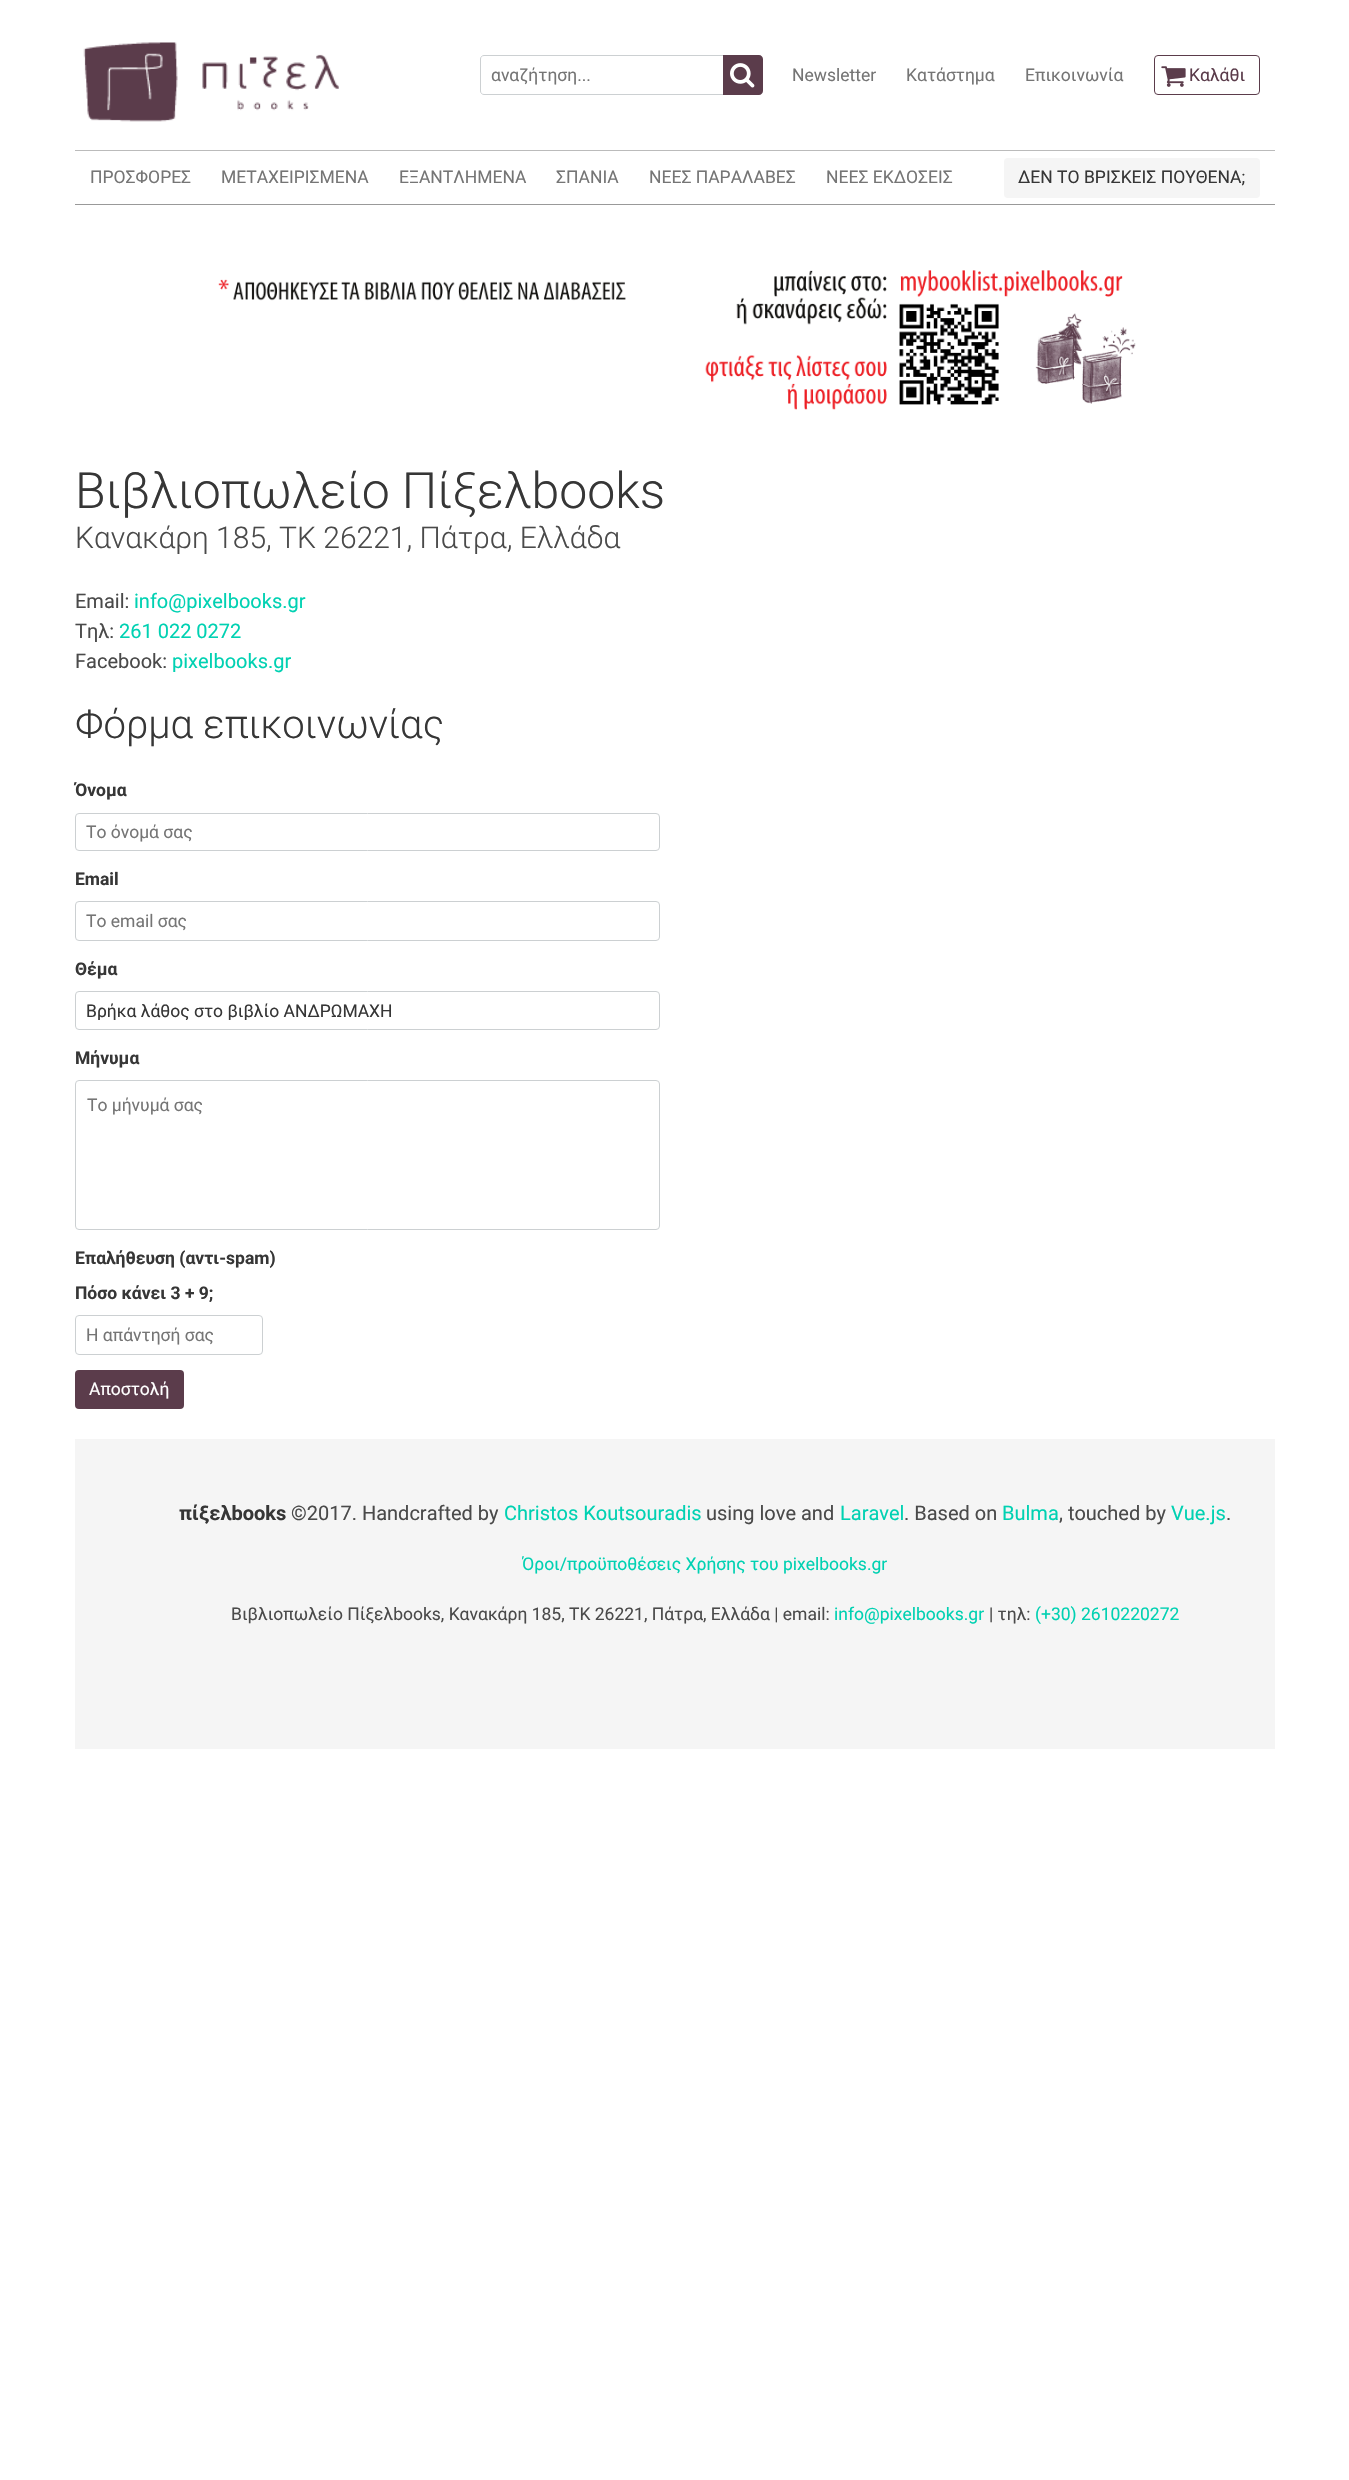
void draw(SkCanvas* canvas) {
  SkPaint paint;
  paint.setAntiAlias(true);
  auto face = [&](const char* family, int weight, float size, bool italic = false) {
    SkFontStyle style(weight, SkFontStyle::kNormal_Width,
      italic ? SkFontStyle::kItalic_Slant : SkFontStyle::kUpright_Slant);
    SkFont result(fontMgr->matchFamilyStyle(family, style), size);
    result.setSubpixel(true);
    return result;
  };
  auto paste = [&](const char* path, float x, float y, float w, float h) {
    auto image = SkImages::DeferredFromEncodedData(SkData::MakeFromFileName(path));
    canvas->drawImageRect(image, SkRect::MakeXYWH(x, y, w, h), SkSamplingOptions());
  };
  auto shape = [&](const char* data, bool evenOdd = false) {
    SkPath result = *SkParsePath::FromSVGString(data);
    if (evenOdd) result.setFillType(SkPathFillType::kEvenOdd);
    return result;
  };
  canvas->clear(0xffffffff);
  paste("img/1.png", 83, 42, 256, 80);
  paint.setStroke(true);
  paint.setStrokeWidth(1);
  paint.setColor(0xffccd0d2);
  canvas->drawPath(shape("M484 55.5H723.5V94.5H484C482 94.5 480.5 93 480.5 91V59C480.5 57 482 55.5 484 55.5Z"), paint);
  paint.setStroke(false);
  paint.setColor(0xff5b3c4b);
  canvas->drawPath(shape("M723 55H759C761 55 763 57 763 59V91C763 93 761 95 759 95H723Z"), paint);
  paste("img/2.png", 730, 63, 25, 25);
  paint.setStroke(true);
  canvas->drawRoundRect(SkRect::MakeXYWH(1154.5f, 55.5f, 105, 39), 3.5f, 3.5f, paint);
  paste("img/3.png", 1161, 66, 25, 21);
  paint.setStroke(false);
  paint.setColor(0xffbbbbbb);
  canvas->drawRect(SkRect::MakeXYWH(75, 150, 1200, 1), paint);
  paint.setColor(0xff999999);
  canvas->drawRect(SkRect::MakeXYWH(75, 204, 1200, 1), paint);
  paint.setColor(0xfff5f5f5);
  canvas->drawRoundRect(SkRect::MakeXYWH(1004, 158, 256, 40), 4, 4, paint);
  paste("img/4.png", 218, 270, 918, 140);
  paint.setStroke(true);
  paint.setColor(0xffccd0d2);
  canvas->drawRoundRect(SkRect::MakeXYWH(75.5f, 813.5f, 584, 37), 3.5f, 3.5f, paint);
  canvas->drawRoundRect(SkRect::MakeXYWH(75.5f, 901.5f, 584, 39), 3.5f, 3.5f, paint);
  canvas->drawRoundRect(SkRect::MakeXYWH(75.5f, 991.5f, 584, 38), 3.5f, 3.5f, paint);
  canvas->drawRoundRect(SkRect::MakeXYWH(75.5f, 1080.5f, 584, 149), 3.5f, 3.5f, paint);
  canvas->drawRoundRect(SkRect::MakeXYWH(75.5f, 1315.5f, 187, 39), 3.5f, 3.5f, paint);
  paint.setStroke(false);
  paint.setColor(0xff5b3c4b);
  canvas->drawRoundRect(SkRect::MakeXYWH(75, 1370, 109, 39), 4, 4, paint);
  paint.setColor(0xfff5f5f5);
  canvas->drawRect(SkRect::MakeXYWH(75, 1439, 1200, 310), paint);
  auto f0 = face("Roboto", 400, 17.5f);
  paint.setColor(0xff757575);
  {
    const struct { const char* s; float x, y; } items[] = {
      {"αναζήτηση...", 491, 81},
      {"Newsletter", 792, 81},
      {"Κατάστημα", 906, 81},
      {"Επικοινωνία", 1025, 81},
    };
    for (auto [s, x, y] : items) {
      canvas->drawString(s, x, y, f0, paint);
    }
  }
  paint.setColor(0xff5b3c4b);
  canvas->drawString("Καλάθι", 1189, 81, f0, paint);
  paint.setColor(0xff757575);
  {
    const struct { const char* s; float x, y; } items[] = {
      {"ΠΡΟΣΦΟΡΕΣ", 90, 183},
      {"ΜΕΤΑΧΕΙΡΙΣΜΕΝΑ", 221, 183},
      {"ΕΞΑΝΤΛΗΜΕΝΑ", 399, 183},
      {"ΣΠΑΝΙΑ", 556, 183},
      {"ΝΕΕΣ ΠΑΡΑΛΑΒΕΣ", 649, 183},
      {"ΝΕΕΣ ΕΚΔΟΣΕΙΣ", 826, 183},
    };
    for (auto [s, x, y] : items) {
      canvas->drawString(s, x, y, f0, paint);
    }
  }
  paint.setColor(0xff363636);
  canvas->drawString("ΔΕΝ ΤΟ ΒΡΙΣΚΕΙΣ ΠΟΥΘΕΝΑ;", 1018, 183, f0, paint);
  auto f1 = face("Roboto", 300, 50);
  canvas->drawString("Βιβλιοπωλείο Πίξελbooks", 75, 508, f1, paint);
  auto f2 = face("Roboto", 300, 30);
  paint.setColor(0xff4a4a4a);
  canvas->drawString("Κανακάρη 185, ΤΚ 26221, Πάτρα, Ελλάδα", 75, 548, f2, paint);
  auto f3 = face("Roboto", 400, 20);
  canvas->drawString("Email:", 75, 608, f3, paint);
  paint.setColor(0xff00d1b2);
  canvas->drawString("info@pixelbooks.gr", 134, 608, f3, paint);
  paint.setColor(0xff4a4a4a);
  canvas->drawString("Τηλ:", 75, 638, f3, paint);
  paint.setColor(0xff00d1b2);
  canvas->drawString("261 022 0272", 119, 638, f3, paint);
  paint.setColor(0xff4a4a4a);
  canvas->drawString("Facebook:", 75, 668, f3, paint);
  paint.setColor(0xff00d1b2);
  canvas->drawString("pixelbooks.gr", 172, 668, f3, paint);
  auto f4 = face("Roboto", 300, 40);
  paint.setColor(0xff363636);
  canvas->drawString("Φόρμα επικοινωνίας", 75, 738, f4, paint);
  auto f5 = face("Roboto", 700, 17.5f);
  canvas->drawString("Όνομα", 75, 796, f5, paint);
  paint.setColor(0xff757575);
  canvas->drawString("Το όνομά σας", 86, 838, f0, paint);
  paint.setColor(0xff363636);
  canvas->drawString("Email", 75, 885, f5, paint);
  paint.setColor(0xff757575);
  canvas->drawString("Το email σας", 86, 927, f0, paint);
  paint.setColor(0xff363636);
  canvas->drawString("Θέμα", 75, 975, f5, paint);
  canvas->save();
  canvas->clipRect(SkRect::MakeXYWH(86, 1000, 563, 20));
  canvas->drawString("Βρήκα λάθος στο βιβλίο ΑΝΔΡΩΜΑΧΗ", 86, 1017, f0, paint);
  canvas->restore();
  canvas->drawString("Μήνυμα", 75, 1064, f5, paint);
  paint.setColor(0xff757575);
  canvas->drawString("Το μήνυμά σας", 87, 1111, f0, paint);
  paint.setColor(0xff363636);
  canvas->drawString("Επαλήθευση (αντι-spam)", 75, 1264, f5, paint);
  canvas->drawString("Πόσο κάνει 3 + 9;", 75, 1299, f5, paint);
  paint.setColor(0xff757575);
  canvas->drawString("Η απάντησή σας", 86, 1341, f0, paint);
  paint.setColor(0xffffffff);
  canvas->drawString("Αποστολή", 89, 1395, f0, paint);
  auto f6 = face("Roboto", 700, 20);
  paint.setColor(0xff363636);
  canvas->drawString("πίξελbooks", 179, 1520, f6, paint);
  paint.setColor(0xff4a4a4a);
  canvas->drawString("©2017. Handcrafted by", 291, 1520, f3, paint);
  paint.setColor(0xff00d1b2);
  canvas->drawString("Christos Koutsouradis", 504, 1520, f3, paint);
  paint.setColor(0xff4a4a4a);
  canvas->drawString("using love and", 706, 1520, f3, paint);
  paint.setColor(0xff00d1b2);
  canvas->drawString("Laravel", 840, 1520, f3, paint);
  paint.setColor(0xff4a4a4a);
  canvas->drawString(". Based on", 904, 1520, f3, paint);
  paint.setColor(0xff00d1b2);
  canvas->drawString("Bulma", 1002, 1520, f3, paint);
  paint.setColor(0xff4a4a4a);
  canvas->drawString(", touched by", 1059, 1520, f3, paint);
  paint.setColor(0xff00d1b2);
  canvas->drawString("Vue.js", 1171, 1520, f3, paint);
  paint.setColor(0xff4a4a4a);
  canvas->drawString(".", 1226, 1520, f3, paint);
  paint.setColor(0xff00d1b2);
  canvas->drawString("Όροι/προϋποθέσεις Χρήσης του pixelbooks.gr", 522, 1570, f0, paint);
  paint.setColor(0xff4a4a4a);
  canvas->drawString("Βιβλιοπωλείο Πίξελbooks, Κανακάρη 185, ΤΚ 26221, Πάτρα, Ελλάδα | email:", 231, 1620, f0, paint);
  paint.setColor(0xff00d1b2);
  canvas->drawString("info@pixelbooks.gr", 834, 1620, f0, paint);
  paint.setColor(0xff4a4a4a);
  canvas->drawString("| τηλ:", 989, 1620, f0, paint);
  paint.setColor(0xff00d1b2);
  canvas->drawString("(+30) 2610220272", 1035, 1620, f0, paint);
}
